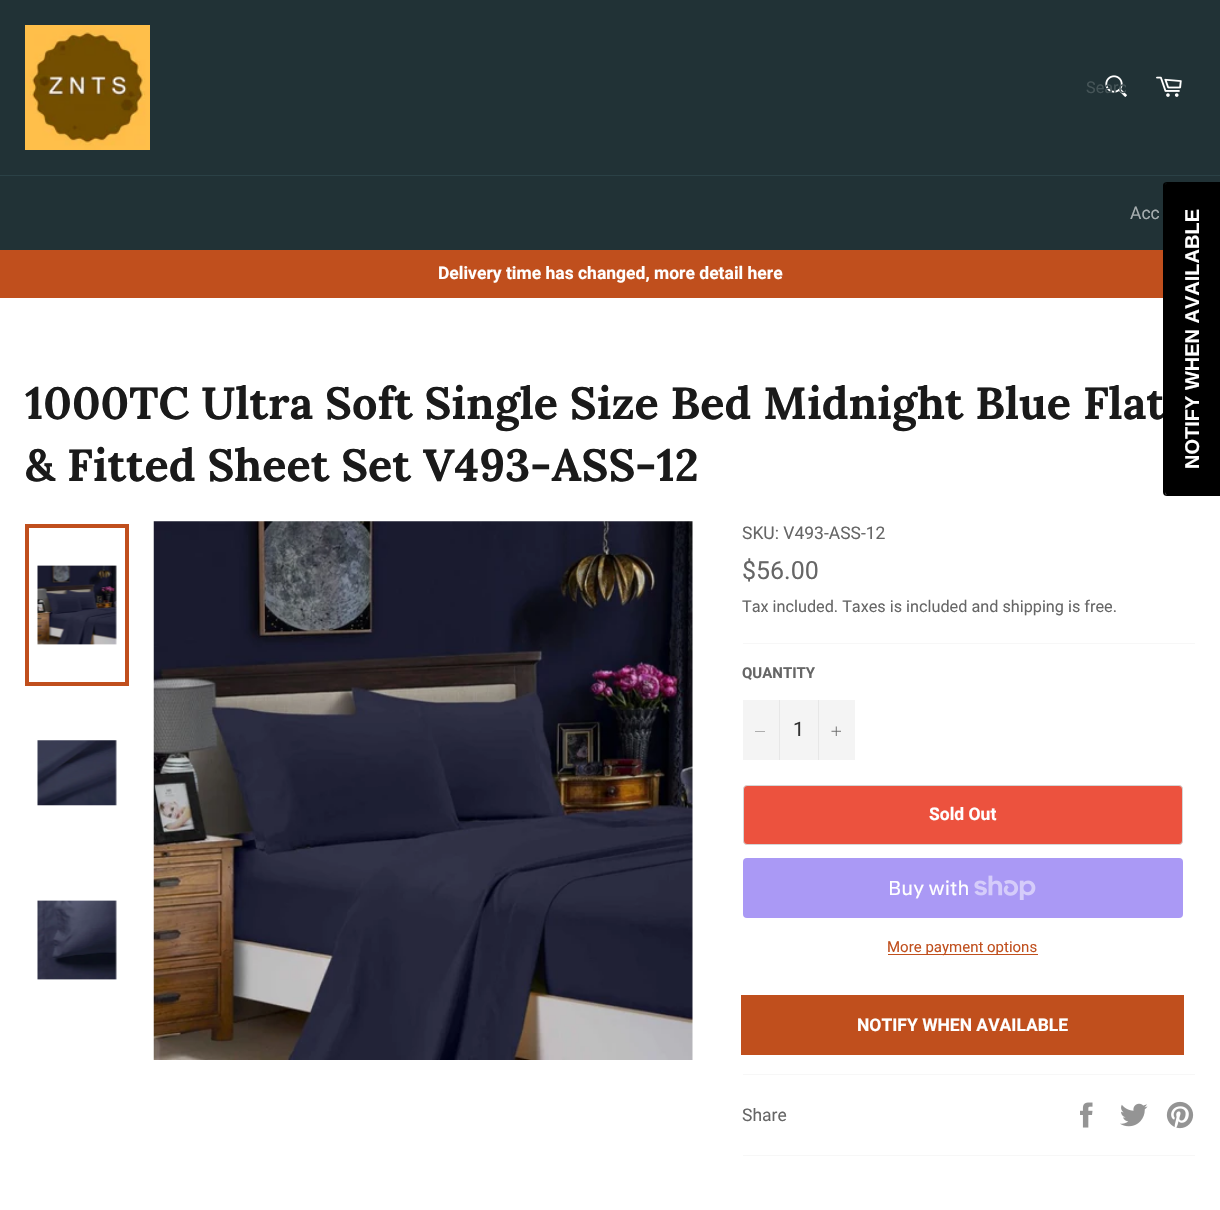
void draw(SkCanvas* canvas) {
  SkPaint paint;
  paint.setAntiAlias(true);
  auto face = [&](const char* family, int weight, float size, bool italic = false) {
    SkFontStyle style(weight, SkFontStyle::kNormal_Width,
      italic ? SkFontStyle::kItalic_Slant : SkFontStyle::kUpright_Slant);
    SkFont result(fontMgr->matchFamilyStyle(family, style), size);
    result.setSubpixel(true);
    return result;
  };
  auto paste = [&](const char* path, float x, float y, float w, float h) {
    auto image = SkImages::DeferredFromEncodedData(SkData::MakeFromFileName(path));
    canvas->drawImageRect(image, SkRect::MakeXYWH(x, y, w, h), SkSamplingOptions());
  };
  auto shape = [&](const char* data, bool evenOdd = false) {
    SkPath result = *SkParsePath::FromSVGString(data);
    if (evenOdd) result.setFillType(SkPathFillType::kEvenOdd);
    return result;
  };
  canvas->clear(0xff213236);
  paste("img/1.png", 25, 25, 125, 125);
  paste("img/2.png", 1105, 75, 22, 22);
  paste("img/3.png", 1156, 76, 26, 21);
  {
    const struct { float x, y, w, h; SkColor color; } items[] = {
      {0, 175, 1220, 1, 0xff2b4146},
      {0, 250, 1163, 48, 0xffc04f1d},
      {0, 298, 1220, 912, 0xffffffff},
    };
    for (auto [x, y, w, h, color] : items) {
      paint.setColor(color);
      canvas->drawRect(SkRect::MakeXYWH(x, y, w, h), paint);
    }
  }
  paste("img/4.png", 37, 565, 80, 80);
  paint.setStroke(true);
  paint.setStrokeWidth(4);
  paint.setColor(0xffc04f1d);
  canvas->drawRect(SkRect::MakeXYWH(27, 526, 100, 158), paint);
  paste("img/5.png", 37, 740, 80, 66);
  paste("img/6.png", 37, 900, 80, 80);
  paste("img/7.png", 153, 521, 540, 539);
  paint.setStroke(false);
  {
    const struct { float x, y, w, h; SkColor color; } items[] = {
      {743, 643, 452, 1, 0xfff7f7f7},
      {743, 700, 112, 60, 0xfff4f4f4},
      {779, 700, 1, 60, 0xffe7e7e7},
    };
    for (auto [x, y, w, h, color] : items) {
      paint.setColor(color);
      canvas->drawRect(SkRect::MakeXYWH(x, y, w, h), paint);
    }
  }
  paint.setColor(0xff666666);
  canvas->drawPath(shape("M765 731V731.5H755V731Z", true), paint);
  paint.setColor(0xffe7e7e7);
  canvas->drawRect(SkRect::MakeXYWH(818, 700, 1, 60), paint);
  paste("img/8.png", 831, 726, 10, 10);
  paint.setColor(0xffec523e);
  canvas->drawRoundRect(SkRect::MakeXYWH(743.5f, 785.5f, 439, 59), 3.5f, 3.5f, paint);
  paint.setStroke(true);
  paint.setStrokeWidth(1);
  paint.setColor(0xffd5d5d5);
  canvas->drawRoundRect(SkRect::MakeXYWH(743.5f, 785.5f, 439, 59), 3.5f, 3.5f, paint);
  paint.setStroke(false);
  paint.setColor(0xffaa99f5);
  canvas->drawRoundRect(SkRect::MakeXYWH(743, 858, 440, 60), 4, 4, paint);
  paste("img/9.png", 974, 875, 62, 25);
  {
    const struct { float x, y, w, h; SkColor color; } items[] = {
      {888, 954, 150, 1, 0xffc04f1d},
      {741, 995, 443, 60, 0xffc04f1d},
      {743, 1074, 452, 1, 0xfff7f7f7},
    };
    for (auto [x, y, w, h, color] : items) {
      paint.setColor(color);
      canvas->drawRect(SkRect::MakeXYWH(x, y, w, h), paint);
    }
  }
  paste("img/10.png", 1080, 1102, 13, 26);
  paste("img/11.png", 1120, 1103, 28, 24);
  paste("img/12.png", 1166, 1101, 28, 28);
  canvas->drawRect(SkRect::MakeXYWH(743, 1155, 452, 1), paint);
  canvas->save();
  canvas->clipRect(SkRect::MakeXYWH(1086, 79, 40, 19));
  auto f0 = face("Roboto", 400, 16.25f);
  paint.setColor(0xff455457);
  canvas->drawString("Searc", 1086, 93, f0, paint);
  canvas->restore();
  auto f1 = face("Roboto", 400, 17.5f);
  paint.setColor(0xffa6adaf);
  canvas->drawString("Acc", 1130, 219, f1, paint);
  auto f2 = face("Roboto", 700, 17.5f);
  paint.setColor(0xffffffff);
  canvas->drawString("Delivery time has changed, more detail here", 438, 279, f2, paint);
  auto f3 = face("Lora", 700, 45);
  paint.setColor(0xff1a1a1a);
  canvas->drawString("1000TC Ultra Soft Single Size Bed Midnight Blue Flat", 25, 419, f3, paint);
  paint.setColor(0xff000000);
  canvas->drawPath(shape("M1165 492V185C1165 184 1166 183 1167 183H1220V495H1167C1166 495 1165 494 1165 492Z"), paint);
  canvas->drawPath(shape("M1163 492V185C1163 183 1165 182 1167 182H1220V496H1167C1165 496 1163 495 1163 492ZM1165 492V185C1165 184 1166 183 1167 183H1220V495H1167C1166 495 1165 494 1165 492Z", true), paint);
  auto f4 = face("Liberation Sans", 700, 20);
  paint.setColor(0xffffffff);
  canvas->save();
  canvas->rotate(-90, 1199, 469);
  canvas->drawString("NOTIFY WHEN AVAILABLE", 1199, 469, f4, paint);
  canvas->restore();
  paint.setColor(0xff1a1a1a);
  canvas->drawString("& Fitted Sheet Set V493-ASS-12", 25, 481, f3, paint);
  paint.setColor(0xff666666);
  canvas->drawString("SKU: V493-ASS-12", 742, 539, f1, paint);
  auto f5 = face("Roboto", 400, 25);
  canvas->drawString("$56.00", 742, 579, f5, paint);
  canvas->drawString("Tax included. Taxes is included and shipping is free.", 742, 612, f0, paint);
  auto f6 = face("Roboto", 700, 15);
  canvas->drawString("QUANTITY", 742, 678, f6, paint);
  auto f7 = face("Roboto", 400, 20);
  paint.setColor(0xff333333);
  canvas->drawString("1", 793, 736, f7, paint);
  paint.setColor(0xffffffff);
  canvas->drawString("Sold Out", 929, 820, f2, paint);
  auto f8 = face("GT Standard", 400, 20);
  canvas->drawString("Buy with", 888, 895, f8, paint);
  auto f9 = face("Roboto", 400, 15);
  paint.setColor(0xffc04f1d);
  canvas->drawString("More payment options", 887, 952, f9, paint);
  paint.setColor(0xffffffff);
  canvas->drawString("NOTIFY WHEN AVAILABLE", 857, 1031, f2, paint);
  paint.setColor(0xff666666);
  canvas->drawString("Share", 742, 1121, f1, paint);
}
